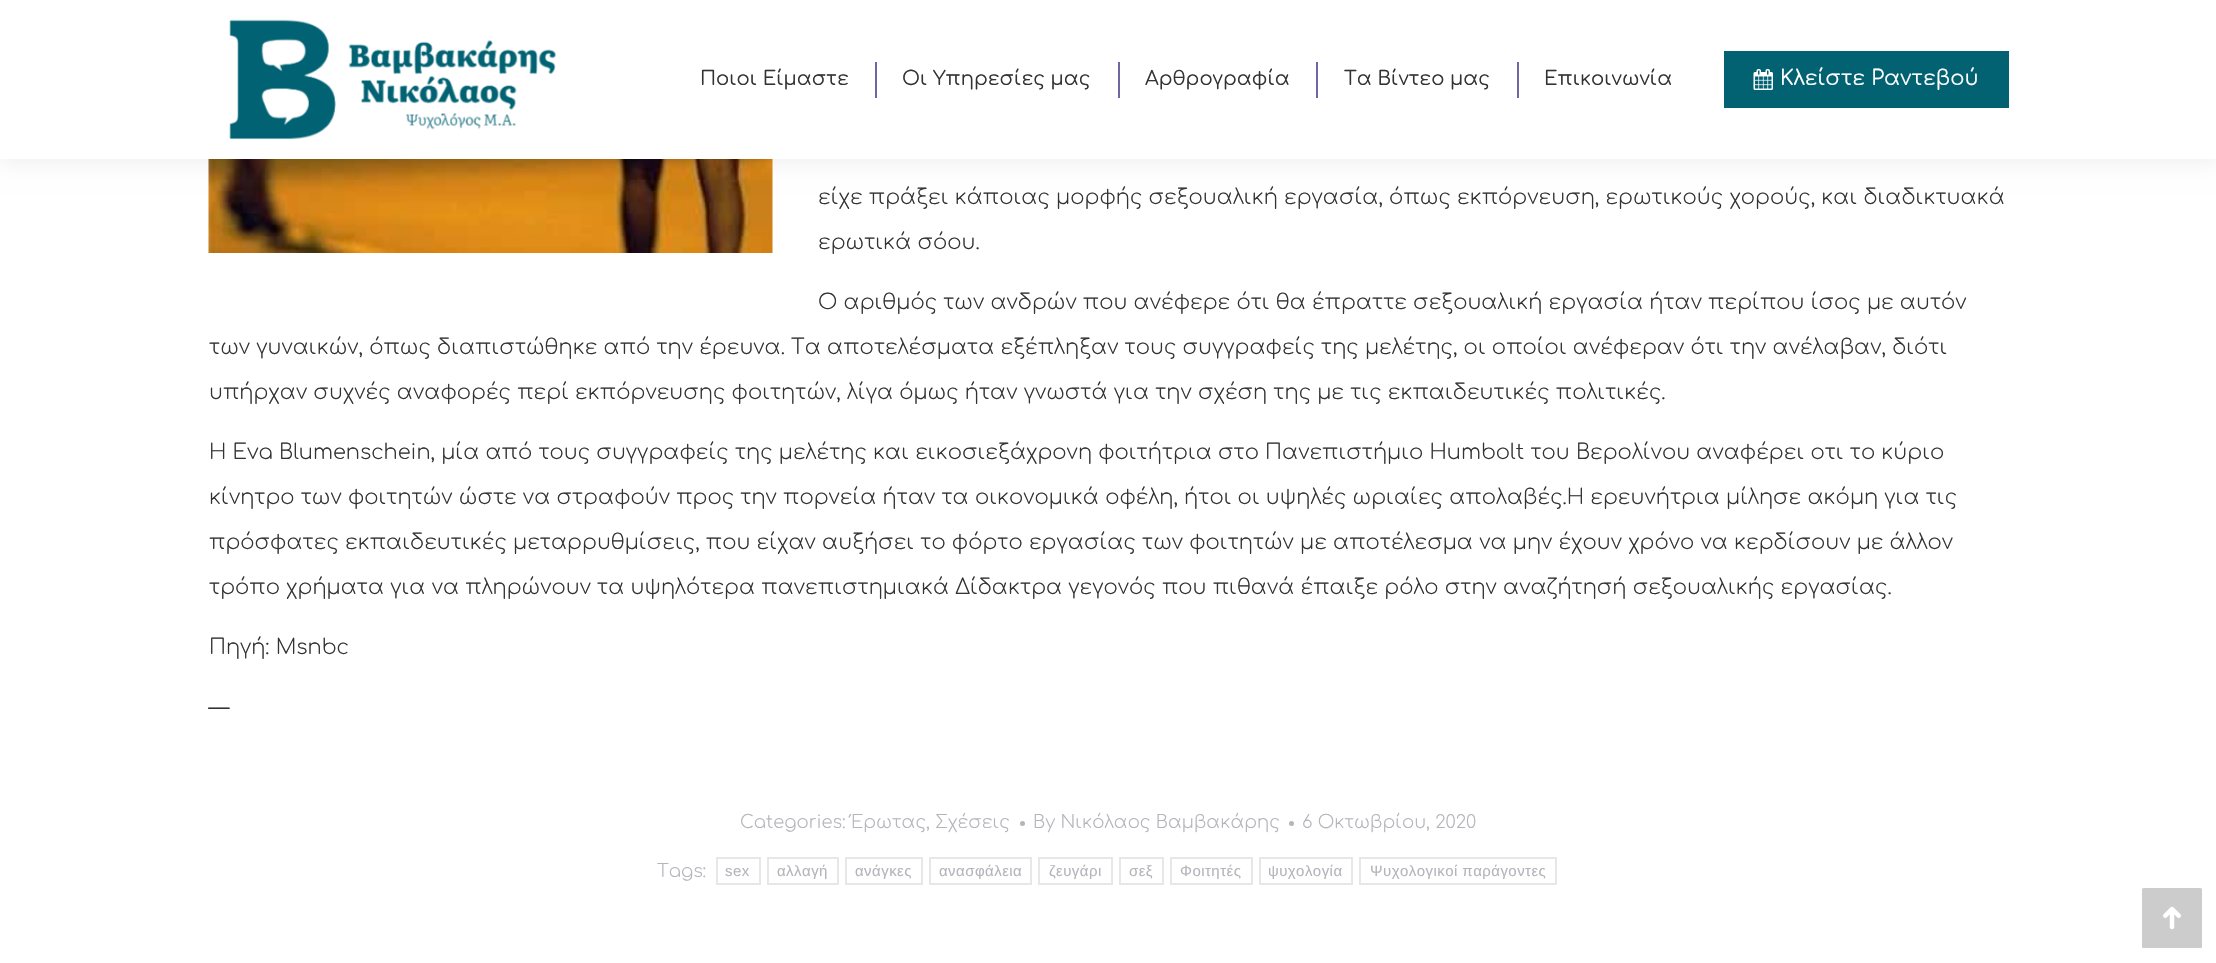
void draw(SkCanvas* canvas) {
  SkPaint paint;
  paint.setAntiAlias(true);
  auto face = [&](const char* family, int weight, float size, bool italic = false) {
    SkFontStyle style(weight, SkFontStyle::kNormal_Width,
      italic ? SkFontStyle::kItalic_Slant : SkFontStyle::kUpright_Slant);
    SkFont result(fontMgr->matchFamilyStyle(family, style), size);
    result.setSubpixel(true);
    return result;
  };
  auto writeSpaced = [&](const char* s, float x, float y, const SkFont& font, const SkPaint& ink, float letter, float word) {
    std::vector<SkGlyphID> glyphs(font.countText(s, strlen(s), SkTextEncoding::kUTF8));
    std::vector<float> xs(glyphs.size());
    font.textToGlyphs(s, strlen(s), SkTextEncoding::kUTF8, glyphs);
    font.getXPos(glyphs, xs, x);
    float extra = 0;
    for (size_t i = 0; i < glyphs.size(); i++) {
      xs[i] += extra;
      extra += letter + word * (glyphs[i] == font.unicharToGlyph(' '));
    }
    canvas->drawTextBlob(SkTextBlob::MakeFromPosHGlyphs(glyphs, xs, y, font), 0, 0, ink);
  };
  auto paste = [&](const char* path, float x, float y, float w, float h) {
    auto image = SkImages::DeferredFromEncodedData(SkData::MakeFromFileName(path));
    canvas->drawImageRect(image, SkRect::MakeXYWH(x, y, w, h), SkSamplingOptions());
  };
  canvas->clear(0xffffffff);
  paste("img/3.png", 208, 159, 565, 94);
  paint.setColor(0x12000000);
  paint.setMaskFilter(SkMaskFilter::MakeBlur(kNormal_SkBlurStyle, 11));
  canvas->drawRect(SkRect::MakeXYWH(-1, -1, 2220, 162), paint);
  paint.setMaskFilter(nullptr);
  paint.setColor(0xffffffff);
  canvas->drawRect(SkRect::MakeXYWH(0, 0, 2216, 159), paint);
  paste("img/1.png", 229, 19, 327, 121);
  {
    const struct { float x, y, w, h; SkColor color; } items[] = {
      {875, 62, 2, 36, 0xff7166a2},
      {1118, 62, 2, 36, 0xff7166a2},
      {1316, 62, 2, 36, 0xff7166a2},
      {1517, 62, 2, 36, 0xff7166a2},
      {1724, 51, 285, 57, 0xff036272},
    };
    for (auto [x, y, w, h, color] : items) {
      paint.setColor(color);
      canvas->drawRect(SkRect::MakeXYWH(x, y, w, h), paint);
    }
  }
  paste("img/2.png", 1753, 69, 20, 21);
  paint.setColor(0xffb4b5bb);
  canvas->drawCircle(1022.5f, 823.5f, 2.5f, paint);
  canvas->drawCircle(1291.5f, 823.5f, 2.5f, paint);
  paint.setStroke(true);
  paint.setStrokeWidth(2);
  paint.setColor(0xffe7e7e7);
  canvas->drawRect(SkRect::MakeXYWH(717, 858, 43, 26), paint);
  canvas->drawRect(SkRect::MakeXYWH(768, 858, 70, 26), paint);
  canvas->drawRect(SkRect::MakeXYWH(846, 858, 76, 26), paint);
  canvas->drawRect(SkRect::MakeXYWH(930, 858, 101, 26), paint);
  canvas->drawRect(SkRect::MakeXYWH(1039, 858, 73, 26), paint);
  canvas->drawRect(SkRect::MakeXYWH(1120, 858, 43, 26), paint);
  canvas->drawRect(SkRect::MakeXYWH(1171, 858, 81, 26), paint);
  canvas->drawRect(SkRect::MakeXYWH(1260, 858, 92, 26), paint);
  canvas->drawRect(SkRect::MakeXYWH(1360, 858, 196, 26), paint);
  paint.setStroke(false);
  paint.setColor(0xffcccccc);
  canvas->drawRoundRect(SkRect::MakeXYWH(2142, 888, 60, 60), 1.5f, 1.5f, paint);
  paste("img/4.png", 2163, 906, 18, 24);
  auto f0 = face("Comfortaa", 400, 19.5f);
  paint.setColor(0xff333333);
  {
    const struct { const char* s; float x, y; } items[] = {
      {"Ποιοι Είμαστε", 700, 85},
      {"Οι Υπηρεσίες μας", 902, 85},
      {"Αρθρογραφία", 1145, 85},
      {"Τα Βίντεο μας", 1344, 85},
      {"Επικοινωνία", 1544, 85},
    };
    for (auto [s, x, y] : items) {
      canvas->drawString(s, x, y, f0, paint);
    }
  }
  auto f1 = face("Comfortaa", 400, 21);
  paint.setColor(0xffffffff);
  canvas->drawString("Κλείστε Ραντεβού", 1780, 85, f1, paint);
  auto f2 = face("Comfortaa", 300, 21);
  paint.setColor(0xff333333);
  {
    const struct { const char* s; float x, y; } items[] = {
      {"είχε πράξει κάποιας μορφής σεξουαλική εργασία, όπως εκπόρνευση, ερωτικούς χορούς, και διαδικτυακά", 818, 204},
      {"ερωτικά σόου.", 818, 249},
      {"Ο αριθμός των ανδρών που ανέφερε ότι θα έπραττε σεξουαλική εργασία ήταν περίπου ίσος με αυτόν", 818, 309},
      {"των γυναικών, όπως διαπιστώθηκε από την έρευνα. Τα αποτελέσματα εξέπληξαν τους συγγραφείς της μελέτης, οι οποίοι ανέφεραν ότι την ανέλαβαν, διότι", 209, 354},
      {"υπήρχαν συχνές αναφορές περί εκπόρνευσης φοιτητών, λίγα όμως ήταν γνωστά για την σχέση της με τις εκπαιδευτικές πολιτικές.", 209, 399},
      {"Η Eva Blumenschein, μία από τους συγγραφείς της μελέτης και εικοσιεξάχρονη φοιτήτρια στο Πανεπιστήμιο Humbolt του Βερολίνου αναφέρει οτι το κύριο", 209, 459},
      {"κίνητρο των φοιτητών ώστε να στραφούν προς την πορνεία ήταν τα οικονομικά οφέλη, ήτοι οι υψηλές ωριαίες απολαβές.Η ερευνήτρια μίλησε ακόμη για τις", 209, 504},
      {"πρόσφατες εκπαιδευτικές μεταρρυθμίσεις, που είχαν αυξήσει το φόρτο εργασίας των φοιτητών με αποτέλεσμα να μην έχουν χρόνο να κερδίσουν με άλλον", 209, 549},
      {"τρόπο χρήματα για να πληρώνουν τα υψηλότερα πανεπιστημιακά Δίδακτρα γεγονός που πιθανά έπαιξε ρόλο στην αναζήτησή σεξουαλικής εργασίας.", 209, 594},
      {"Πηγή: Msnbc", 209, 654},
      {"—", 209, 714},
    };
    for (auto [s, x, y] : items) {
      canvas->drawString(s, x, y, f2, paint);
    }
  }
  auto f3 = face("Comfortaa", 300, 18);
  paint.setColor(0xffb4b5bb);
  {
    const struct { const char* s; float x, y; } items[] = {
      {"Categories: Έρωτας, Σχέσεις", 740, 828},
      {"By Νικόλαος Βαμβακάρης", 1033, 828},
      {"6 Οκτωβρίου, 2020", 1302, 828},
      {"Tags:", 657, 877},
    };
    for (auto [s, x, y] : items) {
      canvas->drawString(s, x, y, f3, paint);
    }
  }
  auto f4 = face("Liberation Sans", 400, 15);
  {
    const struct { const char* s; float x, y; } items[] = {
      {"sex", 725, 876},
      {"αλλαγή", 777, 876},
      {"ανάγκες", 855, 876},
      {"ανασφάλεια", 939, 876},
      {"ζευγάρι", 1049, 876},
      {"σεξ", 1129, 876},
      {"Φοιτητές", 1180, 876},
      {"ψυχολογία", 1268, 876},
      {"Ψυχολογικοί παράγοντες", 1370, 876},
    };
    for (auto [s, x, y] : items) {
      writeSpaced(s, x, y, f4, paint, 0.45f, 0);
    }
  }
}
